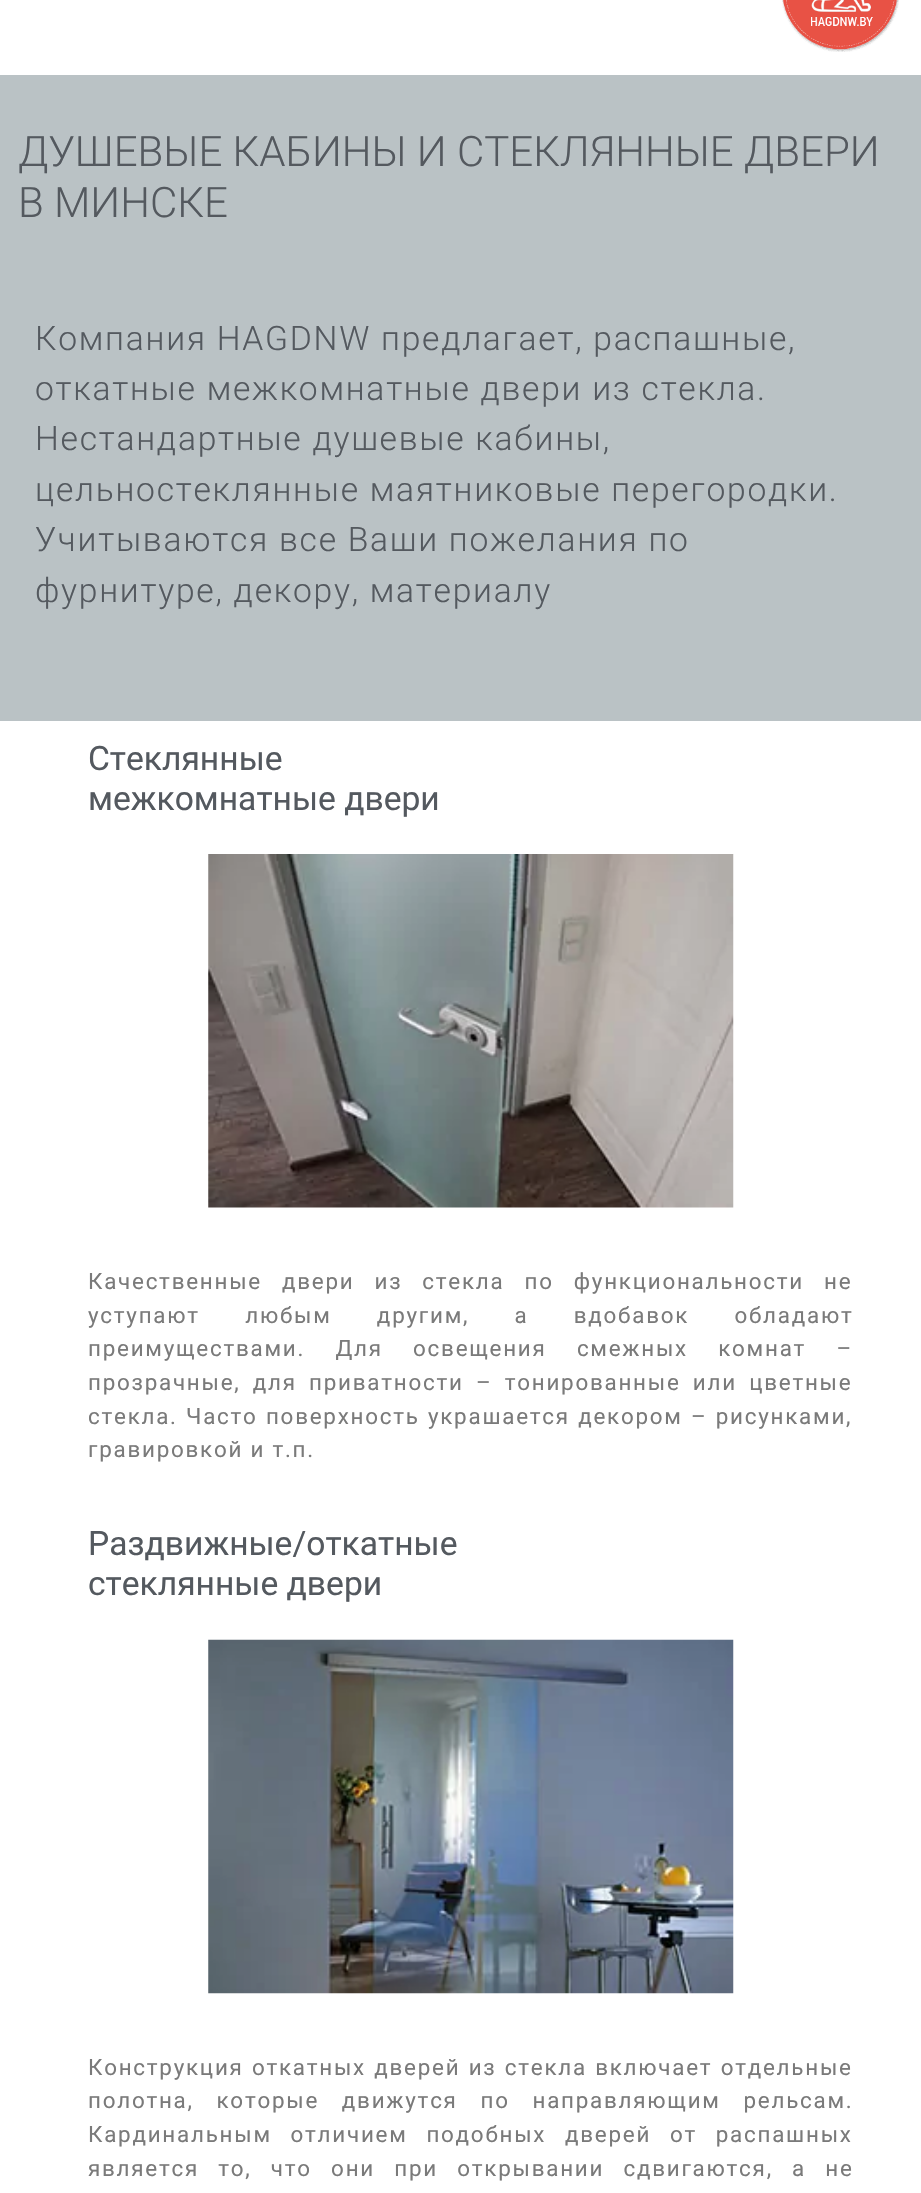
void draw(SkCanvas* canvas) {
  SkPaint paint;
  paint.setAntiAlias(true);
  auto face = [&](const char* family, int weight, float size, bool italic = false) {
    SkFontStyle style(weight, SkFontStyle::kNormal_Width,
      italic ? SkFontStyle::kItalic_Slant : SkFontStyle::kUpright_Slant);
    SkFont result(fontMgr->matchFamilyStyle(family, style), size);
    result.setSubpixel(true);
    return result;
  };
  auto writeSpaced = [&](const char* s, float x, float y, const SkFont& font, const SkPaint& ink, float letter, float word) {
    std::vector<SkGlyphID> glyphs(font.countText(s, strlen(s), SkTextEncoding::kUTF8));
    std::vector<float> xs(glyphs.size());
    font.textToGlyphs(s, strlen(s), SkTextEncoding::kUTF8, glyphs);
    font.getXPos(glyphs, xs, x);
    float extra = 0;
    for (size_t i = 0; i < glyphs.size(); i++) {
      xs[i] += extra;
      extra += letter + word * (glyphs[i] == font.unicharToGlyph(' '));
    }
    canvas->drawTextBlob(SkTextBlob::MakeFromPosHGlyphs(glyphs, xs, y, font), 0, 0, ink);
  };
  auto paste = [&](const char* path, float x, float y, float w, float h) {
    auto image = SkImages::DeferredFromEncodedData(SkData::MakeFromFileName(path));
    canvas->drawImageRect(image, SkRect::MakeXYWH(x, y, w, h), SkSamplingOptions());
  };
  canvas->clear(0xffffffff);
  paste("img/1.png", 782, 0, 117, 52);
  paint.setColor(0xffbac2c5);
  canvas->drawRect(SkRect::MakeXYWH(0, 75, 921, 646), paint);
  paste("img/2.png", 208, 854, 526, 354);
  paste("img/3.png", 208, 1639, 526, 355);
  auto f0 = face("Roboto", 300, 42);
  paint.setColor(0xff54595f);
  canvas->drawString("ДУШЕВЫЕ КАБИНЫ И СТЕКЛЯННЫЕ ДВЕРИ", 18, 166, f0, paint);
  canvas->drawString("В МИНСКЕ", 18, 217, f0, paint);
  auto f1 = face("Roboto", 300, 33.6f);
  {
    const struct { const char* s; float x, y; } items[] = {
      {"Компания HAGDNW предлагает, распашные,", 35, 350},
      {"откатные межкомнатные двери из стекла.", 35, 400},
      {"Нестандартные душевые кабины,", 35, 450},
      {"цельностеклянные маятниковые перегородки.", 35, 501},
      {"Учитываются все Ваши пожелания по", 35, 551},
      {"фурнитуре, декору, материалу", 35, 602},
    };
    for (auto [s, x, y] : items) {
      writeSpaced(s, x, y, f1, paint, 1.75f, 0);
    }
  }
  auto f2 = face("Roboto", 400, 33.6f);
  canvas->drawString("Стеклянные", 88, 770, f2, paint);
  canvas->drawString("межкомнатные двери", 88, 810, f2, paint);
  auto f3 = face("Roboto", 400, 22.4f);
  paint.setColor(0xff7a7a7a);
  writeSpaced("Качественные двери из стекла по функциональности не", 88, 1289, f3, paint, 1.75f, 12.75f);
  writeSpaced("уступают любым другим, а вдобавок обладают", 88, 1323, f3, paint, 1.75f, 38);
  writeSpaced("преимуществами. Для освещения смежных комнат –", 88, 1356, f3, paint, 1.75f, 23);
  writeSpaced("прозрачные, для приватности – тонированные или цветные", 88, 1390, f3, paint, 1.75f, 5);
  writeSpaced("стекла. Часто поверхность украшается декором – рисунками,", 88, 1424, f3, paint, 1.75f, 1);
  writeSpaced("гравировкой и т.п.", 88, 1457, f3, paint, 1.75f, 0);
  paint.setColor(0xff54595f);
  canvas->drawString("Раздвижные/откатные", 88, 1555, f2, paint);
  canvas->drawString("стеклянные двери", 88, 1595, f2, paint);
  paint.setColor(0xff7a7a7a);
  writeSpaced("Конструкция откатных дверей из стекла включает отдельные", 88, 2075, f3, paint, 1.75f, 1);
  writeSpaced("полотна, которые движутся по направляющим рельсам.", 88, 2108, f3, paint, 1.75f, 15.5f);
  writeSpaced("Кардинальным отличием подобных дверей от распашных", 88, 2142, f3, paint, 1.75f, 11.5f);
  writeSpaced("является то, что они при открывании сдвигаются, а не", 88, 2176, f3, paint, 1.75f, 12);
}
